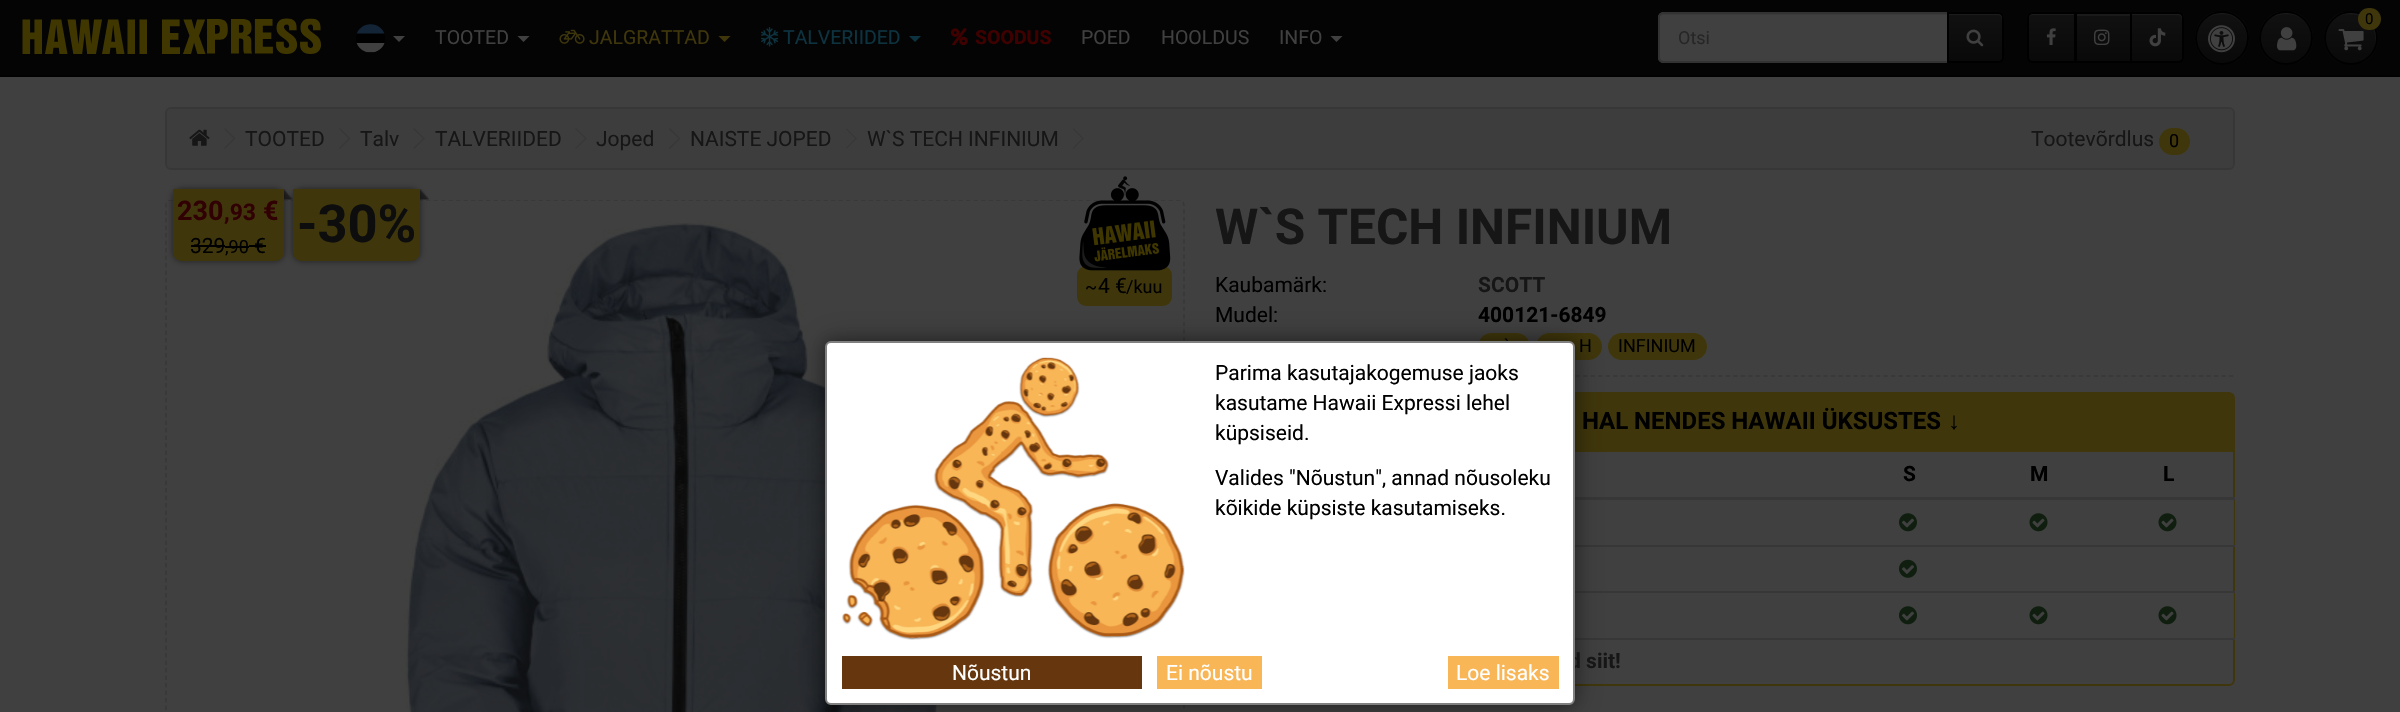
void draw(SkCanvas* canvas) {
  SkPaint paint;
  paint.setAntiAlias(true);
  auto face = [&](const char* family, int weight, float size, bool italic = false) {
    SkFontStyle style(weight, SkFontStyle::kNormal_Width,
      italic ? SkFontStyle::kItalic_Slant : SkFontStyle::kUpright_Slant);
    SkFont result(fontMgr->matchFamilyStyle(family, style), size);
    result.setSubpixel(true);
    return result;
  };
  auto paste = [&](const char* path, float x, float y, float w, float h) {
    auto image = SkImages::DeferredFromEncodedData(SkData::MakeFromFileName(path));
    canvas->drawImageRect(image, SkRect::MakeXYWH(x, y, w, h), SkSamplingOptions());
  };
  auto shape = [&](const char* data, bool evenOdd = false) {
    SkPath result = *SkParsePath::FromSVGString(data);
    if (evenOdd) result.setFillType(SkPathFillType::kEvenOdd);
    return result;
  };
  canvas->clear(0xff404040);
  paint.setColor(0xff040404);
  canvas->drawRect(SkRect::MakeXYWH(0, 0, 2400, 75), paint);
  paint.setColor(0xff020202);
  canvas->drawRect(SkRect::MakeXYWH(0, 75, 2400, 2), paint);
  paste("img/1.png", 22, 18, 299, 36);
  canvas->save();
  canvas->clipPath(shape("M2033 12H2076V63H2033C2029.5 63 2027 60.5 2027 57V18C2027 14.5 2029.5 12 2033 12Z"), true);
  {
    const SkColor colors[] = {0xff111111, 0xff090909};
    const float stops[] = {0, 1};
    const SkPoint ends[] = {{2051, 13}, {2051, 62}};
    paint.setShader(SkGradientShader::MakeLinear(ends, colors, stops, 2, SkTileMode::kClamp));
    paint.setAlpha(255);
  }
  canvas->drawRect(SkRect::MakeXYWH(2027, 14, 47, 48), paint);
  canvas->restore();
  paint.setShader(nullptr);
  paint.setColor(0x33404040);
  canvas->drawPath(shape("M2032 15H2074V62H2075V14H2033C2030 14 2028 16 2028 19V20C2028 17 2030 15 2032 15Z"), paint);
  paint.setStroke(true);
  paint.setStrokeWidth(2);
  paint.setColor(0xff000000);
  canvas->drawPath(shape("M2033 13H2075V62H2033C2030 62 2028 60 2028 57V18C2028 15 2030 13 2033 13Z"), paint);
  paste("img/2.png", 2046, 28, 10, 17);
  paint.setStroke(false);
  {
    const SkColor colors[] = {0xff111111, 0xff090909};
    const float stops[] = {0, 1};
    const SkPoint ends[] = {{2103, 13}, {2103, 62}};
    paint.setShader(SkGradientShader::MakeLinear(ends, colors, stops, 2, SkTileMode::kClamp));
    paint.setAlpha(255);
  }
  canvas->drawRect(SkRect::MakeXYWH(2077, 16, 53, 45), paint);
  paint.setShader(nullptr);
  paint.setColor(0xff1a1a1a);
  canvas->drawRect(SkRect::MakeXYWH(2076, 14, 54, 2), paint);
  paint.setStroke(true);
  paint.setColor(0xff000000);
  canvas->drawRect(SkRect::MakeXYWH(2076, 13, 55, 49), paint);
  paste("img/3.png", 2094, 29, 16, 16);
  canvas->save();
  canvas->clipPath(shape("M2130 12H2178C2181.5 12 2184 14.5 2184 18V57C2184 60.5 2181.5 63 2178 63H2130Z"), true);
  paint.setStroke(false);
  {
    const SkColor colors[] = {0xff111111, 0xff090909};
    const float stops[] = {0, 1};
    const SkPoint ends[] = {{2157, 13}, {2157, 62}};
    paint.setShader(SkGradientShader::MakeLinear(ends, colors, stops, 2, SkTileMode::kClamp));
    paint.setAlpha(255);
  }
  canvas->drawRect(SkRect::MakeXYWH(2132, 14, 52, 48), paint);
  canvas->restore();
  paint.setShader(nullptr);
  paint.setColor(0x33404040);
  canvas->drawPath(shape("M2132 15H2178C2180 15 2182 17 2182 20V58L2181 61C2182 60 2183 58 2183 57V19C2183 16 2181 14 2178 14H2132Z"), paint);
  paint.setStroke(true);
  paint.setColor(0xff000000);
  canvas->drawPath(shape("M2131 13H2178C2181 13 2183 15 2183 18V57C2183 60 2181 62 2178 62H2131Z"), paint);
  paste("img/4.png", 2149, 28, 17, 19);
  canvas->save();
  canvas->clipPath(shape("M2222 11C2237 11 2249 23 2249 38C2249 53 2237 65 2222 65C2207 65 2195 53 2195 38C2195 23 2207 11 2222 11Z"), true);
  paint.setStroke(false);
  {
    const SkColor colors[] = {0xff111111, 0xff090909};
    const float stops[] = {0, 1};
    const SkPoint ends[] = {{2222, 12}, {2222, 63}};
    paint.setShader(SkGradientShader::MakeLinear(ends, colors, stops, 2, SkTileMode::kClamp));
    paint.setAlpha(255);
  }
  canvas->drawRect(SkRect::MakeXYWH(2195, 12, 54, 51), paint);
  canvas->restore();
  paint.setShader(nullptr);
  paint.setColor(0x33404040);
  canvas->drawPath(shape("M2222 14C2240 14 2248 29 2247 42C2248 36 2246 29 2243 23C2226-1 2188 18 2197 46C2194 31 2202 14 2222 14Z"), paint);
  paint.setStroke(true);
  paint.setColor(0xff000000);
  canvas->drawCircle(2222, 38, 26, paint);
  paste("img/5.png", 2208, 25, 27, 28);
  canvas->save();
  canvas->clipPath(shape("M2286 11C2301 11 2313 23 2313 38C2313 53 2301 65 2286 65C2271 65 2259 53 2259 38C2259 23 2271 11 2286 11Z"), true);
  paint.setStroke(false);
  {
    const SkColor colors[] = {0xff111111, 0xff090909};
    const float stops[] = {0, 1};
    const SkPoint ends[] = {{2286, 12}, {2286, 63}};
    paint.setShader(SkGradientShader::MakeLinear(ends, colors, stops, 2, SkTileMode::kClamp));
    paint.setAlpha(255);
  }
  canvas->drawRect(SkRect::MakeXYWH(2259, 12, 54, 51), paint);
  canvas->restore();
  paint.setShader(nullptr);
  paint.setColor(0x33404040);
  canvas->drawPath(shape("M2286 14C2306 14 2314 31 2311 46C2321 15 2275-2 2263 28C2266 20 2274 14 2286 14Z"), paint);
  paint.setStroke(true);
  paint.setColor(0xff000000);
  canvas->drawCircle(2286, 38, 26, paint);
  paste("img/6.png", 2277, 27, 20, 24);
  canvas->save();
  canvas->clipPath(shape("M2351 11C2366 11 2378 23 2378 38C2378 53 2366 65 2351 65C2336 65 2324 53 2324 38C2324 23 2336 11 2351 11Z"), true);
  paint.setStroke(false);
  {
    const SkColor colors[] = {0xff111111, 0xff090909};
    const float stops[] = {0, 1};
    const SkPoint ends[] = {{2351, 12}, {2351, 63}};
    paint.setShader(SkGradientShader::MakeLinear(ends, colors, stops, 2, SkTileMode::kClamp));
    paint.setAlpha(255);
  }
  canvas->drawRect(SkRect::MakeXYWH(2324, 12, 54, 51), paint);
  canvas->restore();
  paint.setShader(nullptr);
  paint.setColor(0x33404040);
  canvas->drawPath(shape("M2350 14C2370 14 2378 31 2375 46C2384 18 2346-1 2329 23C2326 29 2324 36 2325 42C2324 29 2332 14 2350 14Z"), paint);
  paint.setStroke(true);
  paint.setColor(0xff000000);
  canvas->drawCircle(2351, 38, 26, paint);
  paste("img/7.png", 2338, 29, 26, 22);
  paint.setStroke(false);
  paint.setColor(0xff3f360b);
  canvas->drawRoundRect(SkRect::MakeXYWH(2358, 8, 23, 22), 11, 11, paint);
  paste("img/8.png", 356, 24, 29, 29);
  paint.setColor(0xff404040);
  canvas->drawPath(shape("M393 36H405L399 42Z"), paint);
  canvas->drawPath(shape("M517.5 36H529.5L523.5 42Z"), paint);
  paste("img/9.png", 559, 29, 26, 15);
  paint.setColor(0xff3f360b);
  canvas->drawPath(shape("M718.5 36H730.5L724.5 42Z"), paint);
  paste("img/10.png", 761, 27, 18, 20);
  paint.setColor(0xff0d3340);
  canvas->drawPath(shape("M909 36H921L915 42Z"), paint);
  paste("img/11.png", 951, 28, 17, 18);
  paint.setColor(0xff404040);
  canvas->drawPath(shape("M1330.5 36H1342.5L1336.5 42Z"), paint);
  canvas->drawPath(shape("M1664 12H1949V63H1664C1660.5 63 1658 60.5 1658 57V18C1658 14.5 1660.5 12 1664 12Z"), paint);
  paint.setColor(0xff3b3b3b);
  canvas->drawPath(shape("M1664 15H1947V14H1664C1661 14 1659 16 1659 19V20C1659 17 1661 15 1664 15Z"), paint);
  paint.setStroke(true);
  paint.setColor(0xff333333);
  canvas->drawPath(shape("M1664 13H1948V62H1664C1661 62 1659 60 1659 57V18C1659 15 1661 13 1664 13Z"), paint);
  canvas->save();
  canvas->clipPath(shape("M1947 12H1998C2001.5 12 2004 14.5 2004 18V57C2004 60.5 2001.5 63 1998 63H1947Z"), true);
  paint.setStroke(false);
  {
    const SkColor colors[] = {0xff111111, 0xff090909};
    const float stops[] = {0, 1};
    const SkPoint ends[] = {{1976, 13}, {1976, 62}};
    paint.setShader(SkGradientShader::MakeLinear(ends, colors, stops, 2, SkTileMode::kClamp));
    paint.setAlpha(255);
  }
  canvas->drawRect(SkRect::MakeXYWH(1949, 14, 55, 48), paint);
  canvas->restore();
  paint.setShader(nullptr);
  paint.setColor(0x33404040);
  canvas->drawPath(shape("M1949 14V15H1998C2000 15 2002 17 2002 20V58L2001 61C2002 60 2003 58 2003 57V19C2003 16 2001 14 1998 14Z"), paint);
  paint.setStroke(true);
  paint.setColor(0xff000000);
  canvas->drawPath(shape("M1948 13H1998C2001 13 2003 15 2003 18V57C2003 60 2001 62 1998 62H1948Z"), paint);
  paste("img/12.png", 1966, 29, 18, 18);
  paint.setStroke(false);
  paint.setColor(0xff3d3d3d);
  canvas->drawRoundRect(SkRect::MakeXYWH(166, 108, 2068, 61), 5, 5, paint);
  paint.setStroke(true);
  paint.setColor(0xff373737);
  canvas->drawRoundRect(SkRect::MakeXYWH(166, 108, 2068, 61), 5, 5, paint);
  paste("img/13.png", 189, 129, 21, 17);
  paint.setStroke(false);
  canvas->drawPath(shape("M224 129L225 128L235.5 138.5L234.5 139.5Z"), paint);
  canvas->drawPath(shape("M224 148L234.5 137.5L235.5 138.5L225 149Z"), paint);
  canvas->drawPath(shape("M339 129L340 128L350.5 138.5L349.5 139.5Z"), paint);
  canvas->drawPath(shape("M339 148L349.5 137.5L350.5 138.5L340 149Z"), paint);
  canvas->drawPath(shape("M413 129L414.5 128L425 138.5L424 139.5Z"), paint);
  canvas->drawPath(shape("M413 148L424 137.5L425 138.5L414.5 149Z"), paint);
  canvas->drawPath(shape("M575 129L576 128L587 138.5L586 139.5Z"), paint);
  canvas->drawPath(shape("M575 148L586 137.5L587 138.5L576 149Z"), paint);
  canvas->drawPath(shape("M668.5 129L670 128L680.5 138.5L679.5 139.5Z"), paint);
  canvas->drawPath(shape("M668.5 148L679.5 137.5L680.5 138.5L670 149Z"), paint);
  canvas->drawPath(shape("M845.5 129L846.5 128L857 138.5L856 139.5Z"), paint);
  canvas->drawPath(shape("M845.5 148L856 137.5L857 138.5L846.5 149Z"), paint);
  canvas->drawPath(shape("M1072.5 129L1073.5 128L1084 138.5L1083 139.5Z"), paint);
  canvas->drawPath(shape("M1072.5 148L1083 137.5L1084 138.5L1073.5 149Z"), paint);
  paint.setColor(0xff3f360b);
  canvas->drawRoundRect(SkRect::MakeXYWH(2159, 128, 31, 27), 13.5f, 13.5f, paint);
  canvas->save();
  canvas->clipRect(SkRect::MakeXYWH(135, 200, 1050, 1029));
  paint.setStroke(true);
  paint.setStrokeWidth(1.5f);
  paint.setColor(0xff373737);
  paint.setPathEffect(SkDashPathEffect::Make({{4.5f, 3}}, 0));
  canvas->drawPath(shape("M171 200H1179C1182 200 1184 202.5 1184 205.5V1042.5C1184 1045.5 1182 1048 1179 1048H171C168 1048 166 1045.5 166 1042.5V205.5C166 202.5 168 200 171 200Z"), paint);
  paint.setPathEffect(nullptr);
  canvas->restore();
  paste("img/14.png", 404, 221, 544, 491);
  paste("img/15.png", 284, 189, 9, 11);
  paint.setStroke(false);
  paint.setColor(0x80000000);
  paint.setMaskFilter(SkMaskFilter::MakeBlur(kNormal_SkBlurStyle, 3));
  canvas->drawRoundRect(SkRect::MakeXYWH(173, 189, 111, 72), 9, 9, paint);
  paint.setMaskFilter(nullptr);
  paint.setColor(0xff3f360b);
  canvas->drawPath(shape("M173 189H284V252C284 257 280 261 275 261H182C177 261 173 257 173 252Z"), paint);
  {
    const struct { float x, y, w, h; SkColor color; } items[] = {
      {191, 245, 34, 2, 0xff000000},
      {225, 246, 24, 2, 0xff000000},
      {249, 245, 17, 2, 0xff000000},
    };
    for (auto [x, y, w, h, color] : items) {
      paint.setColor(color);
      canvas->drawRect(SkRect::MakeXYWH(x, y, w, h), paint);
    }
  }
  paste("img/16.png", 420, 189, 9, 11);
  paint.setColor(0x80000000);
  paint.setMaskFilter(SkMaskFilter::MakeBlur(kNormal_SkBlurStyle, 3));
  canvas->drawRoundRect(SkRect::MakeXYWH(293, 189, 127, 72), 9, 9, paint);
  paint.setMaskFilter(nullptr);
  paint.setColor(0xff3f360b);
  canvas->drawPath(shape("M293 189H420V252C420 257 416 261 411 261H302C297 261 293 257 293 252Z"), paint);
  canvas->drawRoundRect(SkRect::MakeXYWH(1077, 266, 95, 40), 9, 9, paint);
  paste("img/17.png", 1079, 176, 92, 95);
  canvas->drawRoundRect(SkRect::MakeXYWH(1478, 333, 52, 27), 13.5f, 13.5f, paint);
  canvas->drawRoundRect(SkRect::MakeXYWH(1536, 333, 66, 27), 13.5f, 13.5f, paint);
  canvas->drawRoundRect(SkRect::MakeXYWH(1608, 333, 99, 27), 13.5f, 13.5f, paint);
  paint.setStroke(true);
  paint.setColor(0xff373737);
  paint.setPathEffect(SkDashPathEffect::Make({{4.5f, 3.01f}}, 0));
  canvas->drawPath(shape("M1215 376H2235"), paint);
  paint.setPathEffect(nullptr);
  paint.setStrokeWidth(2);
  paint.setColor(0xff3f360b);
  canvas->drawRoundRect(SkRect::MakeXYWH(1216, 393, 1018, 292), 5, 5, paint);
  paint.setStroke(false);
  canvas->drawPath(shape("M1222 393H2229C2232 393 2234 395 2234 398V452H1217V398C1217 395 1219 393 1222 393Z"), paint);
  paint.setColor(0xff373737);
  canvas->drawRect(SkRect::MakeXYWH(1575, 497, 660, 3), paint);
  paint.setColor(0xff3e3e3e);
  canvas->drawRect(SkRect::MakeXYWH(2233, 500, 1, 45), paint);
  paste("img/18.png", 1899, 513, 18, 19);
  paste("img/19.png", 2029, 513, 19, 19);
  paste("img/19.png", 2158, 513, 19, 19);
  paint.setColor(0xff373737);
  canvas->drawRect(SkRect::MakeXYWH(1575, 545, 660, 2), paint);
  paste("img/20.png", 1899, 559, 18, 19);
  paint.setColor(0xff3e3e3e);
  canvas->drawRect(SkRect::MakeXYWH(2233, 593, 1, 45), paint);
  paint.setColor(0xff373737);
  canvas->drawRect(SkRect::MakeXYWH(1575, 591, 660, 2), paint);
  paste("img/19.png", 2158, 606, 19, 19);
  paste("img/18.png", 1899, 606, 18, 19);
  paste("img/19.png", 2029, 606, 19, 19);
  canvas->drawRect(SkRect::MakeXYWH(1575, 638, 660, 2), paint);
  paint.setColor(0x4d000000);
  paint.setMaskFilter(SkMaskFilter::MakeBlur(kNormal_SkBlurStyle, 15));
  canvas->drawRoundRect(SkRect::MakeXYWH(825, 341, 750, 364), 6, 6, paint);
  paint.setMaskFilter(nullptr);
  paint.setMaskFilter(SkMaskFilter::MakeBlur(kNormal_SkBlurStyle, 7.5f));
  canvas->drawRoundRect(SkRect::MakeXYWH(825, 341, 750, 364), 6, 6, paint);
  paint.setMaskFilter(nullptr);
  auto f0 = face("Roboto", 400, 15);
  paint.setColor(0xff000000);
  canvas->drawString("0", 2365, 24, f0, paint);
  auto f1 = face("Roboto", 400, 19.5f);
  paint.setColor(0xff404040);
  canvas->drawString("TOOTED", 435, 44, f1, paint);
  paint.setColor(0xff3f360b);
  canvas->drawString("JALGRATTAD", 589, 44, f1, paint);
  paint.setColor(0xff0d3340);
  canvas->drawString("TALVERIIDED", 783, 44, f1, paint);
  auto f2 = face("Roboto", 700, 19.5f);
  paint.setColor(0xff400000);
  canvas->drawString("SOODUS", 975, 44, f2, paint);
  paint.setColor(0xff404040);
  {
    const struct { const char* s; float x, y; } items[] = {
      {"POED", 1081, 44},
      {"HOOLDUS", 1161, 44},
      {"INFO", 1279, 44},
    };
    for (auto [s, x, y] : items) {
      canvas->drawString(s, x, y, f1, paint);
    }
  }
  auto f3 = face("Roboto", 400, 18);
  paint.setColor(0xff262626);
  canvas->drawString("Otsi", 1678, 44, f3, paint);
  auto f4 = face("Roboto", 400, 21);
  paint.setColor(0xff161616);
  {
    const struct { const char* s; float x, y; } items[] = {
      {"TOOTED", 245, 146},
      {"Talv", 360, 146},
      {"TALVERIIDED", 435, 146},
      {"Joped", 596, 146},
      {"NAISTE JOPED", 690, 146},
      {"W`S TECH INFINIUM", 867, 146},
      {"Tootevõrdlus", 2031, 146},
    };
    for (auto [s, x, y] : items) {
      canvas->drawString(s, x, y, f4, paint);
    }
  }
  paint.setColor(0xff000000);
  canvas->drawString("0", 2169, 147, f3, paint);
  auto f5 = face("Roboto", 700, 27);
  paint.setColor(0xff300003);
  canvas->drawString("230", 177, 220, f5, paint);
  auto f6 = face("Roboto", 700, 23);
  canvas->drawString(",93", 224, 220, f6, paint);
  canvas->drawString("€", 263, 220, f5, paint);
  paint.setColor(0xff000000);
  canvas->drawString("329", 190, 253, f4, paint);
  canvas->drawString(",90", 225, 253, f3, paint);
  canvas->drawString("€", 254, 253, f4, paint);
  auto f7 = face("Roboto", 700, 52.5f);
  paint.setColor(0xff0d0d0d);
  canvas->drawString("-30%", 297, 242, f7, paint);
  paint.setColor(0xff000000);
  canvas->drawString("~", 1085, 293, f3, paint);
  canvas->drawString("4 €", 1098, 293, f4, paint);
  canvas->drawString("/kuu", 1126, 293, f3, paint);
  auto f8 = face("Roboto", 700, 49.5f);
  paint.setColor(0xff161616);
  canvas->drawString("W`S TECH INFINIUM", 1215, 244, f8, paint);
  paint.setColor(0xff000000);
  canvas->drawString("Kaubamärk:", 1215, 292, f4, paint);
  auto f9 = face("Roboto", 700, 21);
  paint.setColor(0xff161616);
  canvas->drawString("SCOTT", 1478, 292, f9, paint);
  paint.setColor(0xff000000);
  canvas->drawString("Mudel:", 1215, 322, f4, paint);
  canvas->drawString("400121-6849", 1478, 322, f9, paint);
  {
    const struct { const char* s; float x, y; } items[] = {
      {"`", 1504, 352},
      {"H", 1579, 352},
      {"INFINIUM", 1618, 352},
    };
    for (auto [s, x, y] : items) {
      canvas->drawString(s, x, y, f3, paint);
    }
  }
  auto f10 = face("Roboto", 700, 24);
  canvas->drawString("HAL NENDES HAWAII ÜKSUSTES", 1582, 429, f10, paint);
  auto f11 = face("Liberation Sans", 700, 24);
  canvas->drawString("↓", 1948, 429, f11, paint);
  {
    const struct { const char* s; float x, y; } items[] = {
      {"S", 1903, 481},
      {"M", 2030, 481},
      {"L", 2163, 481},
    };
    for (auto [s, x, y] : items) {
      canvas->drawString(s, x, y, f9, paint);
    }
  }
  paint.setColor(0xff161616);
  canvas->drawString("d siit!", 1569, 668, f9, paint);
  paint.setColor(0xffffffff);
  canvas->drawRoundRect(SkRect::MakeXYWH(826, 342, 748, 362), 5, 5, paint);
  paint.setStroke(true);
  paint.setColor(0xff808080);
  canvas->drawRoundRect(SkRect::MakeXYWH(826, 342, 748, 362), 5, 5, paint);
  paste("img/21.png", 842, 357, 343, 283);
  paint.setStroke(false);
  paint.setColor(0xff000000);
  {
    const struct { const char* s; float x, y; } items[] = {
      {"Parima kasutajakogemuse jaoks", 1215, 380},
      {"kasutame Hawaii Expressi lehel", 1215, 410},
      {"küpsiseid.", 1215, 440},
      {"Valides \"Nõustun\", annad nõusoleku", 1215, 485},
      {"kõikide küpsiste kasutamiseks.", 1215, 515},
    };
    for (auto [s, x, y] : items) {
      canvas->drawString(s, x, y, f4, paint);
    }
  }
  paint.setColor(0xff66370e);
  canvas->drawRect(SkRect::MakeXYWH(842, 656, 300, 33), paint);
  paint.setColor(0xffffffff);
  canvas->drawString("Nõustun", 952, 680, f4, paint);
  paint.setColor(0xfff8b657);
  canvas->drawRect(SkRect::MakeXYWH(1157, 656, 105, 33), paint);
  paint.setColor(0xffffffff);
  canvas->drawString("Ei nõustu", 1166, 680, f4, paint);
  paint.setColor(0xfff8b657);
  canvas->drawRect(SkRect::MakeXYWH(1448, 656, 111, 33), paint);
  paint.setColor(0xffffffff);
  canvas->drawString("Loe lisaks", 1456, 680, f4, paint);
}
